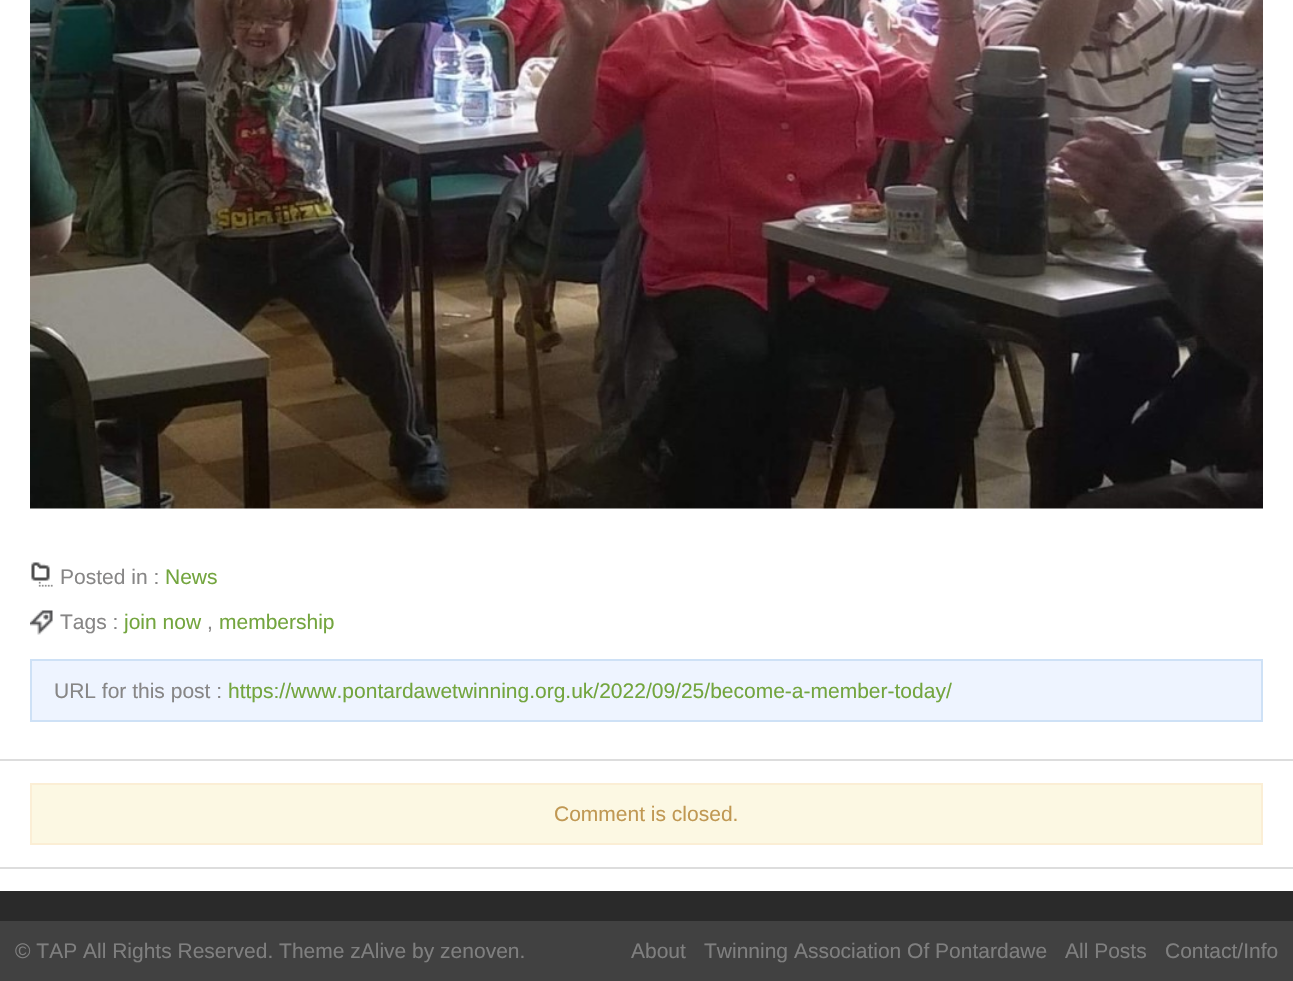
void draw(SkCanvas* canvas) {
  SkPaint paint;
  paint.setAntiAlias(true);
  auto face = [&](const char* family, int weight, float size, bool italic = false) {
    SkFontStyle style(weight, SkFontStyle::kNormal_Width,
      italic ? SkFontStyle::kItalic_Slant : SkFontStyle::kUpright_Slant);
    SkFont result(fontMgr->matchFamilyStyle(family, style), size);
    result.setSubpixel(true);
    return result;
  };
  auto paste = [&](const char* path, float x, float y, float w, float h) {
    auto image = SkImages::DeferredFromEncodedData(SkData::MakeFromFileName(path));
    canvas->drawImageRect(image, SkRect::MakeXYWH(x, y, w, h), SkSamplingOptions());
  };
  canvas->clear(0xff2a2a2a);
  paint.setColor(0xffffffff);
  canvas->drawRect(SkRect::MakeXYWH(0, 0, 1293, 891), paint);
  paint.setColor(0xffdddddd);
  canvas->drawRect(SkRect::MakeXYWH(0, 759, 1293, 2), paint);
  paste("img/1.png", 30, 0, 1233, 509);
  paste("img/2.png", 31, 562, 22, 25);
  paste("img/3.png", 30, 610, 23, 25);
  paint.setColor(0xffeef4ff);
  canvas->drawRect(SkRect::MakeXYWH(31, 660, 1231, 61), paint);
  paint.setStroke(true);
  paint.setStrokeWidth(2);
  paint.setColor(0xffcee1f6);
  canvas->drawRect(SkRect::MakeXYWH(31, 660, 1231, 61), paint);
  paint.setStroke(false);
  paint.setColor(0xffdddddd);
  canvas->drawRect(SkRect::MakeXYWH(0, 867, 1293, 2), paint);
  paint.setColor(0xfffcf8e3);
  canvas->drawRect(SkRect::MakeXYWH(31, 784, 1231, 60), paint);
  paint.setStroke(true);
  paint.setColor(0xfffbeed5);
  canvas->drawRect(SkRect::MakeXYWH(31, 784, 1231, 60), paint);
  paint.setStroke(false);
  paint.setColor(0xff414141);
  canvas->drawRect(SkRect::MakeXYWH(0, 921, 1293, 60), paint);
  auto f0 = face("Liberation Sans", 400, 21);
  paint.setColor(0xff878686);
  canvas->drawString("Posted in :", 60, 584, f0, paint);
  paint.setColor(0xff73a53e);
  canvas->drawString("News", 165, 584, f0, paint);
  paint.setColor(0xff878686);
  canvas->drawString("Tags :", 60, 629, f0, paint);
  paint.setColor(0xff73a53e);
  canvas->drawString("join now", 124, 629, f0, paint);
  paint.setColor(0xff878686);
  canvas->drawString(",", 207, 629, f0, paint);
  paint.setColor(0xff73a53e);
  canvas->drawString("membership", 219, 629, f0, paint);
  paint.setColor(0xff878686);
  canvas->drawString("URL for this post :", 54, 698, f0, paint);
  paint.setColor(0xff73a53e);
  canvas->drawString("https://www.pontardawetwinning.org.uk/2022/09/25/become-a-member-today/", 228, 698, f0, paint);
  paint.setColor(0xffc09853);
  canvas->drawString("Comment is closed.", 554, 821, f0, paint);
  paint.setColor(0xff7f7f7f);
  {
    const struct { const char* s; float x, y; } items[] = {
      {"© TAP All Rights Reserved. Theme zAlive by zenoven.", 15, 958},
      {"About", 631, 958},
      {"Twinning Association Of Pontardawe", 704, 958},
      {"All Posts", 1065, 958},
      {"Contact/Info", 1165, 958},
    };
    for (auto [s, x, y] : items) {
      canvas->drawString(s, x, y, f0, paint);
    }
  }
}
